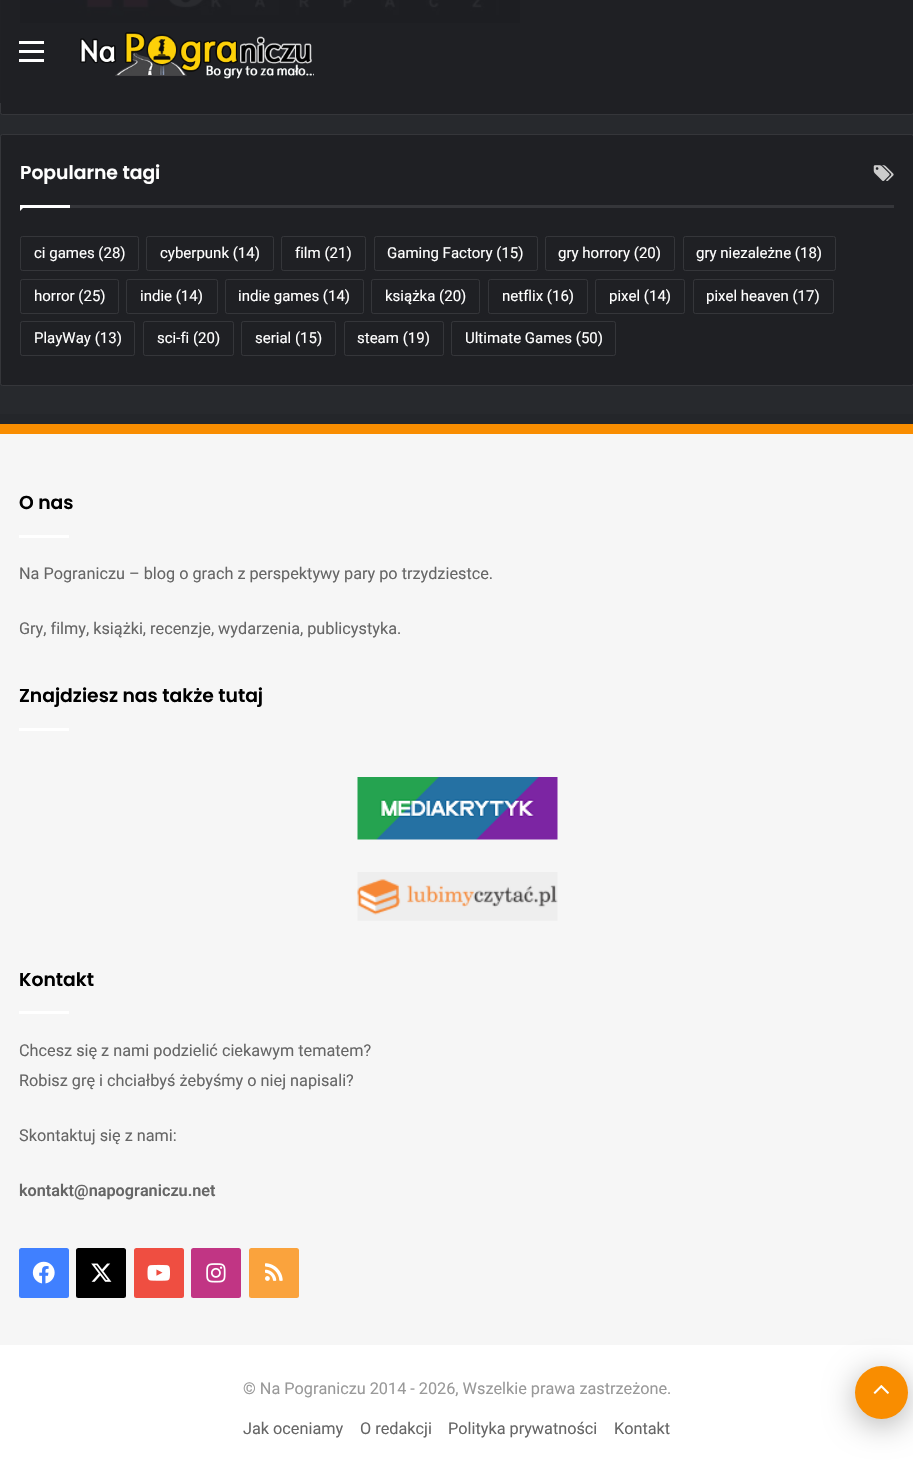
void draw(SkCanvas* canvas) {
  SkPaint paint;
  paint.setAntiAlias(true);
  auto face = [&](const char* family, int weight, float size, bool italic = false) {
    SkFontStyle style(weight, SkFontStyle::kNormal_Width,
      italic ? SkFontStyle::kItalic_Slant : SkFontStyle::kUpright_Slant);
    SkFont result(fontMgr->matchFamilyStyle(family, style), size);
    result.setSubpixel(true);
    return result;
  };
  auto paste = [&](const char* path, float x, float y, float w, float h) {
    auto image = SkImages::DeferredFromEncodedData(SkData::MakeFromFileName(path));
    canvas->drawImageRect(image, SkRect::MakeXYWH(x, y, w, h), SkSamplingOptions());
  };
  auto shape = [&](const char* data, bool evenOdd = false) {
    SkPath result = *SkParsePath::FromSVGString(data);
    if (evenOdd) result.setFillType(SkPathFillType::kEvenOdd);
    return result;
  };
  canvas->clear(0xff27292d);
  paint.setColor(0xff1f2024);
  canvas->drawRoundRect(SkRect::MakeXYWH(0.5f, -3.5f, 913, 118), 2, 2, paint);
  paint.setStroke(true);
  paint.setStrokeWidth(1);
  paint.setColor(0xff35363a);
  canvas->drawRoundRect(SkRect::MakeXYWH(0.5f, -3.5f, 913, 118), 2, 2, paint);
  paste("img/2.png", 20, 0, 500, 24);
  paint.setStroke(false);
  {
    const struct { float x, y, w, h; SkColor color; } items[] = {
      {0, 0, 520, 103, 0xf21f2024},
      {19, 50, 25, 3, 0xffffffff},
      {19, 41, 25, 3, 0xffffffff},
      {19, 59, 25, 3, 0xffffffff},
    };
    for (auto [x, y, w, h, color] : items) {
      paint.setColor(color);
      canvas->drawRect(SkRect::MakeXYWH(x, y, w, h), paint);
    }
  }
  paste("img/1.png", 80, 32, 234, 47);
  paint.setColor(0xff1f2024);
  canvas->drawRoundRect(SkRect::MakeXYWH(0.5f, 134.5f, 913, 251), 2, 2, paint);
  paint.setStroke(true);
  paint.setColor(0xff35363a);
  canvas->drawRoundRect(SkRect::MakeXYWH(0.5f, 134.5f, 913, 251), 2, 2, paint);
  paint.setStroke(false);
  canvas->drawRect(SkRect::MakeXYWH(70, 205, 824, 3), paint);
  paste("img/3.png", 873, 165, 21, 16);
  paint.setColor(0xffffffff);
  canvas->drawPath(shape("M20 205H26L20 211Z"), paint);
  canvas->drawRect(SkRect::MakeXYWH(20, 205, 50, 3), paint);
  paint.setStroke(true);
  paint.setColor(0xff35363a);
  canvas->drawRoundRect(SkRect::MakeXYWH(20.5f, 236.5f, 118, 34), 2, 2, paint);
  canvas->drawRoundRect(SkRect::MakeXYWH(146.5f, 236.5f, 127, 34), 2, 2, paint);
  canvas->drawRoundRect(SkRect::MakeXYWH(281.5f, 236.5f, 84, 34), 2, 2, paint);
  canvas->drawRoundRect(SkRect::MakeXYWH(374.5f, 236.5f, 163, 34), 2, 2, paint);
  canvas->drawRoundRect(SkRect::MakeXYWH(545.5f, 236.5f, 129, 34), 2, 2, paint);
  canvas->drawRoundRect(SkRect::MakeXYWH(683.5f, 236.5f, 152, 34), 2, 2, paint);
  canvas->drawRoundRect(SkRect::MakeXYWH(20.5f, 279.5f, 98, 34), 2, 2, paint);
  canvas->drawRoundRect(SkRect::MakeXYWH(126.5f, 279.5f, 91, 34), 2, 2, paint);
  canvas->drawRoundRect(SkRect::MakeXYWH(225.5f, 279.5f, 138, 34), 2, 2, paint);
  canvas->drawRoundRect(SkRect::MakeXYWH(371.5f, 279.5f, 108, 34), 2, 2, paint);
  canvas->drawRoundRect(SkRect::MakeXYWH(488.5f, 279.5f, 99, 34), 2, 2, paint);
  canvas->drawRoundRect(SkRect::MakeXYWH(595.5f, 279.5f, 89, 34), 2, 2, paint);
  canvas->drawRoundRect(SkRect::MakeXYWH(693.5f, 279.5f, 140, 34), 2, 2, paint);
  canvas->drawRoundRect(SkRect::MakeXYWH(20.5f, 321.5f, 114, 34), 2, 2, paint);
  canvas->drawRoundRect(SkRect::MakeXYWH(143.5f, 321.5f, 90, 34), 2, 2, paint);
  canvas->drawRoundRect(SkRect::MakeXYWH(241.5f, 321.5f, 94, 34), 2, 2, paint);
  canvas->drawRoundRect(SkRect::MakeXYWH(344.5f, 321.5f, 99, 34), 2, 2, paint);
  canvas->drawRoundRect(SkRect::MakeXYWH(451.5f, 321.5f, 164, 34), 2, 2, paint);
  paint.setStroke(false);
  paint.setColor(0xfff6f6f6);
  canvas->drawRect(SkRect::MakeXYWH(0, 434, 913, 911), paint);
  paint.setColor(0xff24262a);
  canvas->drawPath(shape("M0 414V424H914V1335V414Z"), paint);
  {
    const struct { float x, y, w, h; SkColor color; } items[] = {
      {0, 424, 913, 10, 0xfff98d00},
      {19, 535, 50, 3, 0xffffffff},
      {19, 728, 50, 3, 0xffffffff},
    };
    for (auto [x, y, w, h, color] : items) {
      paint.setColor(color);
      canvas->drawRect(SkRect::MakeXYWH(x, y, w, h), paint);
    }
  }
  paste("img/4.png", 357, 777, 201, 63);
  paste("img/5.png", 357, 872, 201, 49);
  canvas->drawRect(SkRect::MakeXYWH(19, 1011, 50, 3), paint);
  paint.setColor(0xff4080ff);
  canvas->drawRoundRect(SkRect::MakeXYWH(19, 1248, 50, 50), 2.5f, 2.5f, paint);
  paste("img/6.png", 32, 1261, 23, 23);
  paint.setColor(0xff000000);
  canvas->drawRoundRect(SkRect::MakeXYWH(76, 1248, 50, 50), 2.5f, 2.5f, paint);
  paste("img/7.png", 91, 1263, 21, 19);
  paint.setColor(0xffef4e41);
  canvas->drawRoundRect(SkRect::MakeXYWH(134, 1248, 50, 50), 2.5f, 2.5f, paint);
  paste("img/8.png", 147, 1264, 23, 17);
  paint.setColor(0xffc13584);
  canvas->drawRoundRect(SkRect::MakeXYWH(191, 1248, 50, 50), 2.5f, 2.5f, paint);
  paste("img/9.png", 206, 1263, 20, 20);
  paint.setColor(0xfffaa33d);
  canvas->drawRoundRect(SkRect::MakeXYWH(249, 1248, 50, 50), 2.5f, 2.5f, paint);
  paste("img/10.png", 265, 1263, 18, 18);
  paint.setColor(0xffffffff);
  canvas->drawRect(SkRect::MakeXYWH(0, 1345, 913, 130), paint);
  paint.setColor(0x4d000000);
  paint.setMaskFilter(SkMaskFilter::MakeBlur(kNormal_SkBlurStyle, 15.5f));
  canvas->drawRoundRect(SkRect::MakeXYWH(855, 1373, 53, 52), 26, 26, paint);
  paint.setMaskFilter(nullptr);
  paint.setColor(0xfff98d00);
  canvas->drawCircle(881.5f, 1392.5f, 26.5f, paint);
  paste("img/11.png", 873, 1385, 16, 9);
  auto f0 = face("Poppins", 600, 18.75f);
  paint.setColor(0xffffffff);
  canvas->drawString("Popularne tagi", 20, 179, f0, paint);
  auto f1 = face("Roboto", 400, 15);
  {
    const struct { const char* s; float x, y; } items[] = {
      {"ci games (28)", 34, 258},
      {"cyberpunk (14)", 160, 258},
      {"film (21)", 295, 258},
      {"Gaming Factory (15)", 387, 258},
      {"gry horrory (20)", 558, 258},
      {"gry niezależne (18)", 696, 258},
      {"horror (25)", 34, 301},
      {"indie (14)", 140, 301},
      {"indie games (14)", 238, 301},
      {"książka (20)", 385, 301},
      {"netflix (16)", 502, 301},
      {"pixel (14)", 609, 301},
      {"pixel heaven (17)", 706, 301},
      {"PlayWay (13)", 34, 343},
      {"sci-fi (20)", 157, 343},
      {"serial (15)", 255, 343},
      {"steam (19)", 357, 343},
      {"Ultimate Games (50)", 465, 343},
    };
    for (auto [s, x, y] : items) {
      canvas->drawString(s, x, y, f1, paint);
    }
  }
  paint.setColor(0xff000000);
  canvas->drawString("O nas", 19, 509, f0, paint);
  auto f2 = face("Roboto", 400, 16.25f);
  paint.setColor(0xff666666);
  canvas->drawString("Na Pograniczu – blog o grach z perspektywy pary po trzydziestce.", 19, 579, f2, paint);
  canvas->drawString("Gry, filmy, książki, recenzje, wydarzenia, publicystyka.", 19, 634, f2, paint);
  paint.setColor(0xff000000);
  canvas->drawString("Znajdziesz nas także tutaj", 19, 702, f0, paint);
  canvas->drawString("Kontakt", 19, 986, f0, paint);
  paint.setColor(0xff666666);
  {
    const struct { const char* s; float x, y; } items[] = {
      {"Chcesz się z nami podzielić ciekawym tematem?", 19, 1056},
      {"Robisz grę i chciałbyś żebyśmy o niej napisali?", 19, 1086},
      {"Skontaktuj się z nami:", 19, 1141},
    };
    for (auto [s, x, y] : items) {
      canvas->drawString(s, x, y, f2, paint);
    }
  }
  auto f3 = face("Roboto", 600, 16.25f);
  canvas->drawString("kontakt@napograniczu.net", 19, 1196, f3, paint);
  paint.setColor(0xff999999);
  canvas->drawString("© Na Pograniczu 2014 - 2026, Wszelkie prawa zastrzeżone.", 243, 1394, f2, paint);
  paint.setColor(0xff666666);
  {
    const struct { const char* s; float x, y; } items[] = {
      {"Jak oceniamy", 243, 1434},
      {"O redakcji", 360, 1434},
      {"Polityka prywatności", 448, 1434},
      {"Kontakt", 614, 1434},
    };
    for (auto [s, x, y] : items) {
      canvas->drawString(s, x, y, f2, paint);
    }
  }
}
